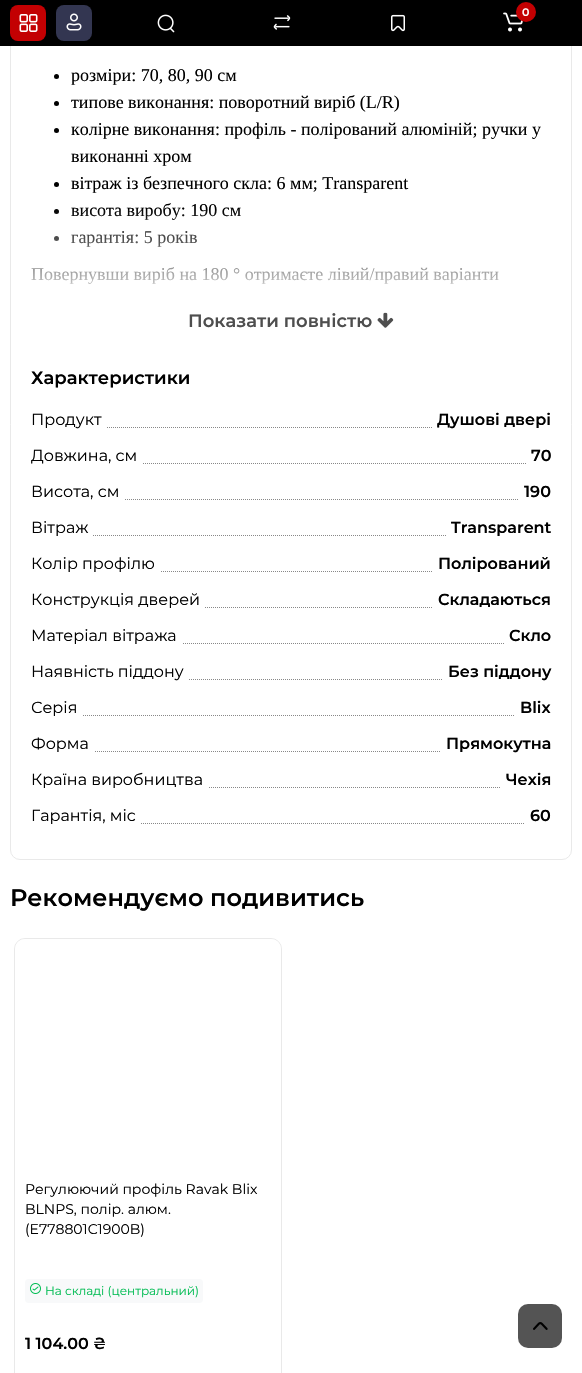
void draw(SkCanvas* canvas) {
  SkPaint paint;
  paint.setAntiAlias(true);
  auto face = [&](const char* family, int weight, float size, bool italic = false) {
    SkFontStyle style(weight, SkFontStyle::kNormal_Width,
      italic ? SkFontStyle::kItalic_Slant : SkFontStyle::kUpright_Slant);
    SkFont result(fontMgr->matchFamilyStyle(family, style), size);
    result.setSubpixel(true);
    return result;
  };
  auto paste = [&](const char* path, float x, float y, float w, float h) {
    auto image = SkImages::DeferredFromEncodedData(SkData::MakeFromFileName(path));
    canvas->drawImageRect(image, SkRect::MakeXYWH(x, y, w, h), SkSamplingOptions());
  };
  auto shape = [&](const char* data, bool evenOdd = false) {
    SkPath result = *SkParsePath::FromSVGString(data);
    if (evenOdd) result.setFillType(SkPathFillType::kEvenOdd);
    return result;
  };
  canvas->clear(0xffffffff);
  paint.setStroke(true);
  paint.setStrokeWidth(1);
  paint.setColor(0xffe9e9e9);
  canvas->drawRoundRect(SkRect::MakeXYWH(10.5f, -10.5f, 561, 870), 9.5f, 9.5f, paint);
  paint.setStroke(false);
  paint.setColor(0xff000000);
  canvas->drawRect(SkRect::MakeXYWH(0, 0, 582, 46), paint);
  paint.setColor(0xffc30002);
  canvas->drawRoundRect(SkRect::MakeXYWH(10, 5, 36, 36), 8, 8, paint);
  paste("img/1.png", 19, 14, 19, 18);
  paint.setColor(0xff333651);
  canvas->drawRoundRect(SkRect::MakeXYWH(56, 5, 36, 36), 8, 8, paint);
  paste("img/2.png", 66, 13, 16, 18);
  paste("img/3.png", 503, 12, 20, 20);
  paint.setColor(0xffc30002);
  canvas->drawCircle(526, 12, 10, paint);
  paste("img/4.png", 157, 14, 18, 19);
  paste("img/5.png", 273, 15, 18, 15);
  paste("img/6.png", 391, 14, 14, 18);
  paint.setColor(0xff000000);
  canvas->drawCircle(56.5f, 76.5f, 2.5f, paint);
  canvas->drawCircle(56.5f, 103.5f, 2.5f, paint);
  canvas->drawCircle(56.5f, 130.5f, 2.5f, paint);
  canvas->drawCircle(56.5f, 184.5f, 2.5f, paint);
  canvas->drawCircle(56.5f, 211.5f, 2.5f, paint);
  canvas->drawCircle(56.5f, 238.5f, 2.5f, paint);
  paste("img/7.png", 377, 312, 17, 16);
  paint.setStroke(true);
  paint.setColor(0xff888888);
  paint.setPathEffect(SkDashPathEffect::Make({{1, 1}}, 0));
  canvas->drawPath(shape("M41 427.5H541"), paint);
  paint.setPathEffect(nullptr);
  paint.setStroke(false);
  paint.setColor(0xffffffff);
  canvas->drawRect(SkRect::MakeXYWH(41, 427, 65, 1), paint);
  canvas->drawRect(SkRect::MakeXYWH(433, 427, 107, 1), paint);
  paint.setStroke(true);
  paint.setColor(0xff888888);
  paint.setPathEffect(SkDashPathEffect::Make({{1, 1}}, 0));
  canvas->drawPath(shape("M41 463.5H541"), paint);
  paint.setPathEffect(nullptr);
  paint.setStroke(false);
  paint.setColor(0xffffffff);
  canvas->drawRect(SkRect::MakeXYWH(41, 463, 101, 1), paint);
  canvas->drawRect(SkRect::MakeXYWH(527, 463, 13, 1), paint);
  paint.setStroke(true);
  paint.setColor(0xff888888);
  paint.setPathEffect(SkDashPathEffect::Make({{1, 1}}, 0));
  canvas->drawPath(shape("M41 499.5H541"), paint);
  paint.setPathEffect(nullptr);
  paint.setStroke(false);
  paint.setColor(0xffffffff);
  canvas->drawRect(SkRect::MakeXYWH(41, 499, 83, 1), paint);
  canvas->drawRect(SkRect::MakeXYWH(519, 499, 21, 1), paint);
  paint.setStroke(true);
  paint.setColor(0xff888888);
  paint.setPathEffect(SkDashPathEffect::Make({{1, 1}}, 0));
  canvas->drawPath(shape("M41 535.5H541"), paint);
  paint.setPathEffect(nullptr);
  paint.setStroke(false);
  paint.setColor(0xffffffff);
  canvas->drawRect(SkRect::MakeXYWH(41, 535, 51, 1), paint);
  canvas->drawRect(SkRect::MakeXYWH(447, 535, 93, 1), paint);
  paint.setStroke(true);
  paint.setColor(0xff888888);
  paint.setPathEffect(SkDashPathEffect::Make({{1, 1}}, 0));
  canvas->drawPath(shape("M41 571.5H541"), paint);
  paint.setPathEffect(nullptr);
  paint.setStroke(false);
  paint.setColor(0xffffffff);
  canvas->drawRect(SkRect::MakeXYWH(41, 571, 119, 1), paint);
  canvas->drawRect(SkRect::MakeXYWH(433, 571, 107, 1), paint);
  paint.setStroke(true);
  paint.setColor(0xff888888);
  paint.setPathEffect(SkDashPathEffect::Make({{1, 1}}, 0));
  canvas->drawPath(shape("M41 607.5H541"), paint);
  paint.setPathEffect(nullptr);
  paint.setStroke(false);
  paint.setColor(0xffffffff);
  canvas->drawRect(SkRect::MakeXYWH(41, 607, 163, 1), paint);
  canvas->drawRect(SkRect::MakeXYWH(433, 607, 107, 1), paint);
  paint.setStroke(true);
  paint.setColor(0xff888888);
  paint.setPathEffect(SkDashPathEffect::Make({{1, 1}}, 0));
  canvas->drawPath(shape("M41 643.5H541"), paint);
  paint.setPathEffect(nullptr);
  paint.setStroke(false);
  paint.setColor(0xffffffff);
  canvas->drawRect(SkRect::MakeXYWH(41, 643, 141, 1), paint);
  canvas->drawRect(SkRect::MakeXYWH(505, 643, 35, 1), paint);
  paint.setStroke(true);
  paint.setColor(0xff888888);
  paint.setPathEffect(SkDashPathEffect::Make({{1, 1}}, 0));
  canvas->drawPath(shape("M41 679.5H541"), paint);
  paint.setPathEffect(nullptr);
  paint.setStroke(false);
  paint.setColor(0xffffffff);
  canvas->drawRect(SkRect::MakeXYWH(41, 679, 147, 1), paint);
  canvas->drawRect(SkRect::MakeXYWH(443, 679, 97, 1), paint);
  paint.setStroke(true);
  paint.setColor(0xff888888);
  paint.setPathEffect(SkDashPathEffect::Make({{1, 1}}, 0));
  canvas->drawPath(shape("M41 715.5H541"), paint);
  paint.setPathEffect(nullptr);
  paint.setStroke(false);
  paint.setColor(0xffffffff);
  canvas->drawRect(SkRect::MakeXYWH(41, 715, 41, 1), paint);
  canvas->drawRect(SkRect::MakeXYWH(515, 715, 25, 1), paint);
  paint.setStroke(true);
  paint.setColor(0xff888888);
  paint.setPathEffect(SkDashPathEffect::Make({{1, 1}}, 0));
  canvas->drawPath(shape("M41 751.5H541"), paint);
  paint.setPathEffect(nullptr);
  paint.setStroke(false);
  paint.setColor(0xffffffff);
  canvas->drawRect(SkRect::MakeXYWH(41, 751, 53, 1), paint);
  canvas->drawRect(SkRect::MakeXYWH(441, 751, 99, 1), paint);
  paint.setStroke(true);
  paint.setColor(0xff888888);
  paint.setPathEffect(SkDashPathEffect::Make({{1, 1}}, 0));
  canvas->drawPath(shape("M41 787.5H541"), paint);
  paint.setPathEffect(nullptr);
  paint.setStroke(false);
  paint.setColor(0xffffffff);
  canvas->drawRect(SkRect::MakeXYWH(41, 787, 167, 1), paint);
  canvas->drawRect(SkRect::MakeXYWH(501, 787, 39, 1), paint);
  paint.setStroke(true);
  paint.setColor(0xff888888);
  paint.setPathEffect(SkDashPathEffect::Make({{1, 1}}, 0));
  canvas->drawPath(shape("M41 823.5H541"), paint);
  paint.setPathEffect(nullptr);
  paint.setStroke(false);
  paint.setColor(0xffffffff);
  canvas->drawRect(SkRect::MakeXYWH(41, 823, 99, 1), paint);
  canvas->drawRect(SkRect::MakeXYWH(525, 823, 15, 1), paint);
  paint.setStroke(true);
  paint.setColor(0xffe9e9e9);
  canvas->drawRoundRect(SkRect::MakeXYWH(14.5f, 938.5f, 267, 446), 10.5f, 10.5f, paint);
  paint.setStroke(false);
  paint.setColor(0xffffffff);
  canvas->drawRoundRect(SkRect::MakeXYWH(15, 939, 266, 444), 10, 10, paint);
  paint.setColor(0xfff8f9fa);
  canvas->drawRoundRect(SkRect::MakeXYWH(25, 1279, 178, 24), 4, 4, paint);
  paste("img/8.png", 30, 1283, 11, 11);
  paint.setColor(0xff545454);
  canvas->drawRoundRect(SkRect::MakeXYWH(518, 1304, 44, 44), 10, 10, paint);
  paste("img/9.png", 533, 1322, 15, 8);
  auto f0 = face("Montserrat", 600, 11);
  paint.setColor(0xffffffff);
  canvas->drawString("0", 522, 16, f0, paint);
  auto f1 = face("Liberation Serif", 400, 18);
  paint.setColor(0xff000000);
  {
    const struct { const char* s; float x, y; } items[] = {
      {"розміри: 70, 80, 90 см", 71, 81},
      {"типове виконання: поворотний виріб (L/R)", 71, 108},
      {"колірне виконання: профіль - полірований алюміній; ручки у", 71, 135},
      {"виконанні хром", 71, 162},
      {"вітраж із безпечного скла: 6 мм; Transparent", 71, 189},
      {"висота виробу: 190 см", 71, 216},
      {"гарантія: 5 років", 71, 243},
      {"Повернувши виріб на 180 ° отримаєте лівий/правий варіанти", 31, 280},
    };
    for (auto [s, x, y] : items) {
      canvas->drawString(s, x, y, f1, paint);
    }
  }
  {
    const SkColor colors[] = {0x00ffffff, 0xffffffff};
    const float stops[] = {0, 1};
    const SkPoint ends[] = {{291, 208}, {291, 308}};
    paint.setShader(SkGradientShader::MakeLinear(ends, colors, stops, 2, SkTileMode::kClamp));
    paint.setAlpha(255);
  }
  canvas->drawRect(SkRect::MakeXYWH(31, 210, 468, 74), paint);
  auto f2 = face("Montserrat", 600, 18);
  paint.setShader(nullptr);
  paint.setColor(0xff4e4e4e);
  canvas->drawString("Показати повністю", 188, 327, f2, paint);
  paint.setColor(0xff000000);
  canvas->drawString("Характеристики", 31, 384, f2, paint);
  auto f3 = face("Montserrat", 400, 16);
  canvas->drawString("Продукт", 31, 425, f3, paint);
  auto f4 = face("Montserrat", 600, 16);
  canvas->drawString("Душові двері", 437, 425, f4, paint);
  canvas->drawString("Довжина, см", 31, 461, f3, paint);
  canvas->drawString("70", 531, 461, f4, paint);
  canvas->drawString("Висота, см", 31, 497, f3, paint);
  canvas->drawString("190", 524, 497, f4, paint);
  canvas->drawString("Вітраж", 31, 533, f3, paint);
  canvas->drawString("Transparent", 451, 533, f4, paint);
  canvas->drawString("Колір профілю", 31, 569, f3, paint);
  canvas->drawString("Полірований", 438, 569, f4, paint);
  canvas->drawString("Конструкція дверей", 31, 605, f3, paint);
  canvas->drawString("Складаються", 438, 605, f4, paint);
  canvas->drawString("Матеріал вітража", 31, 641, f3, paint);
  canvas->drawString("Скло", 509, 641, f4, paint);
  canvas->drawString("Наявність піддону", 31, 677, f3, paint);
  canvas->drawString("Без піддону", 448, 677, f4, paint);
  canvas->drawString("Серія", 31, 713, f3, paint);
  canvas->drawString("Blix", 520, 713, f4, paint);
  canvas->drawString("Форма", 31, 749, f3, paint);
  canvas->drawString("Прямокутна", 446, 749, f4, paint);
  canvas->drawString("Країна виробництва", 31, 785, f3, paint);
  canvas->drawString("Чехія", 506, 785, f4, paint);
  canvas->drawString("Гарантія, міс", 31, 821, f3, paint);
  canvas->drawString("60", 530, 821, f4, paint);
  auto f5 = face("Montserrat", 600, 24);
  canvas->drawString("Рекомендуємо подивитись", 10, 906, f5, paint);
  auto f6 = face("Montserrat", 400, 14);
  {
    const struct { const char* s; float x, y; } items[] = {
      {"Регулюючий профіль Ravak Blix", 25, 1194},
      {"BLNPS, полір. алюм.", 25, 1214},
      {"(E778801C1900B)", 25, 1234},
    };
    for (auto [s, x, y] : items) {
      canvas->drawString(s, x, y, f6, paint);
    }
  }
  auto f7 = face("Montserrat", 400, 12);
  paint.setColor(0xff00bc52);
  canvas->drawString("На складі (центральний)", 45, 1295, f7, paint);
  paint.setColor(0xff000000);
  canvas->drawString("1 104.00 ₴", 25, 1349, f4, paint);
}
